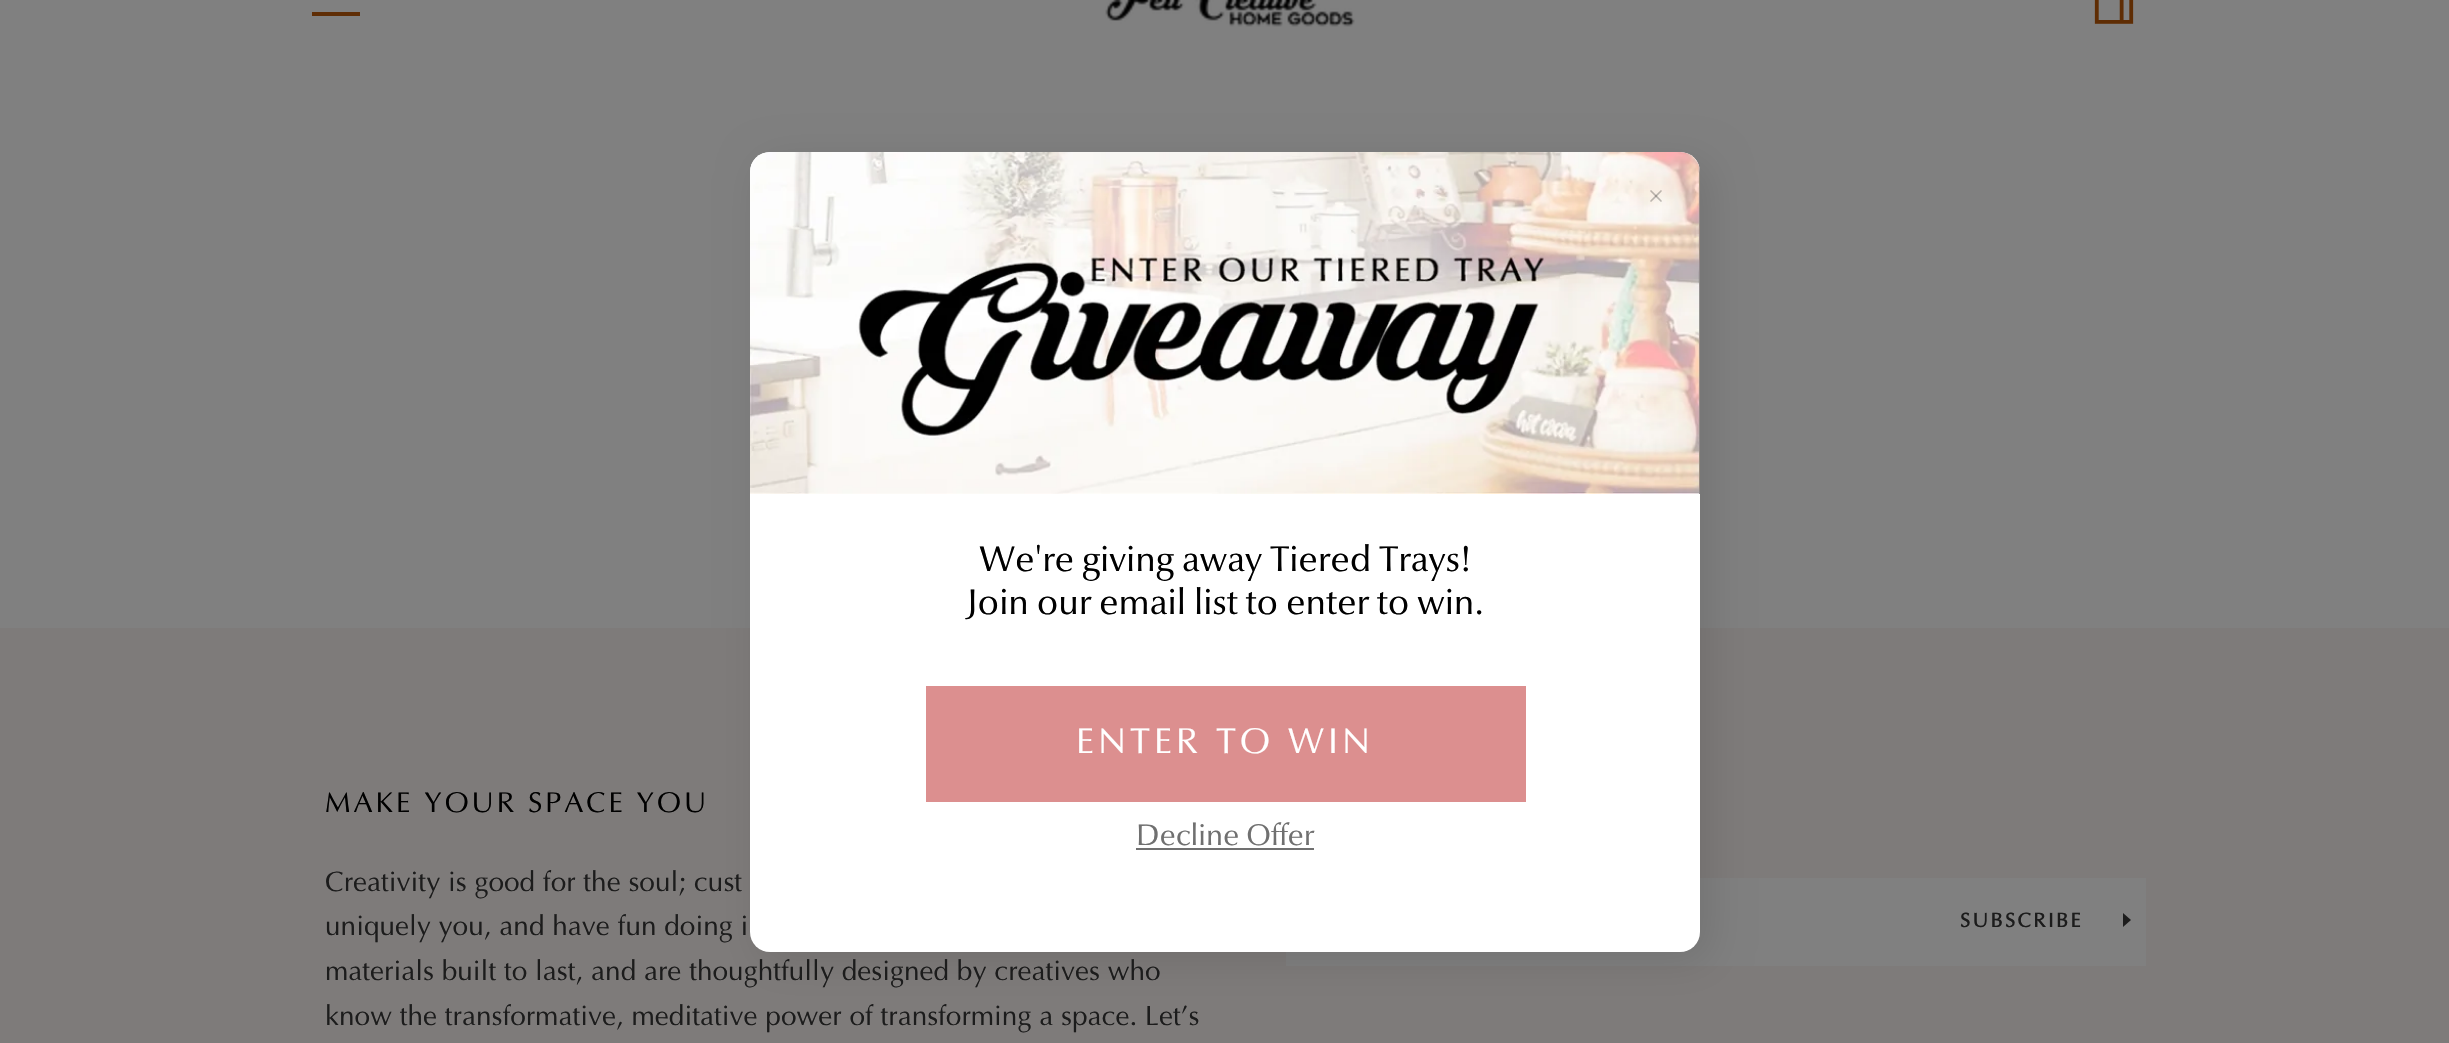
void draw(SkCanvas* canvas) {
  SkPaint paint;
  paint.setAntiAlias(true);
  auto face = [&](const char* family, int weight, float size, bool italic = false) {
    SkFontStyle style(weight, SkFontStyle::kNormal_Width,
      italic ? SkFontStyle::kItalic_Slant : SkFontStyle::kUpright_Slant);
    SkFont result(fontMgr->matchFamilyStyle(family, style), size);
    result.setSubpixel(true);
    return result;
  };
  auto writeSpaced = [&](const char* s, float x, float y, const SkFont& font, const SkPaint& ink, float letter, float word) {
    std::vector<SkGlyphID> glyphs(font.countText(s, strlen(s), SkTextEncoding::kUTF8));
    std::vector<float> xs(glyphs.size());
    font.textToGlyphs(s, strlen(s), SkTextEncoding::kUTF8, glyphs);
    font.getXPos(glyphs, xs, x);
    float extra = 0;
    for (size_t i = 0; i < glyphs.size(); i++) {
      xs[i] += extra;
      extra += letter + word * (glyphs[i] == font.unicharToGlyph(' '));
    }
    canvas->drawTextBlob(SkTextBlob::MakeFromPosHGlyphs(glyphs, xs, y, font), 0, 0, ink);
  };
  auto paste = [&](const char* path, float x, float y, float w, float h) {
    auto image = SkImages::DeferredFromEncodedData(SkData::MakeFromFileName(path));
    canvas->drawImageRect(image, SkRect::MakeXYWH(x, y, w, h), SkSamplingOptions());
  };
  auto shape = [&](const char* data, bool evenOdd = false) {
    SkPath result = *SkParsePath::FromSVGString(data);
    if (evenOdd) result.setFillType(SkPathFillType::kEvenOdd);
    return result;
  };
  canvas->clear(0xff808080);
  paint.setColor(0xff5f2d05);
  canvas->drawRect(SkRect::MakeXYWH(312, 12, 48, 4), paint);
  paste("img/1.png", 1105, 0, 250, 27);
  paste("img/2.png", 2094, 0, 40, 24);
  paint.setColor(0xff7e7b7a);
  canvas->drawRect(SkRect::MakeXYWH(0, 628, 2449, 415), paint);
  paint.setColor(0xff808080);
  canvas->drawRect(SkRect::MakeXYWH(1286, 878, 860, 88), paint);
  paint.setColor(0x1a000000);
  paint.setMaskFilter(SkMaskFilter::MakeBlur(kNormal_SkBlurStyle, 20));
  canvas->drawRoundRect(SkRect::MakeXYWH(760, 162, 950, 800), 20, 20, paint);
  paint.setMaskFilter(nullptr);
  paint.setColor(0xffffffff);
  canvas->drawRoundRect(SkRect::MakeXYWH(750, 152, 950, 800), 20, 20, paint);
  paste("img/3.png", 750, 152, 950, 342);
  paint.setStroke(true);
  paint.setStrokeWidth(1.7f);
  paint.setStrokeCap(SkPaint::kRound_Cap);
  paint.setColor(0x40000000);
  canvas->drawPath(shape("M1651 191L1661 201"), paint);
  canvas->drawPath(shape("M1661 191L1651 201"), paint);
  paint.setStroke(false);
  paint.setColor(0xffdc8f8f);
  canvas->drawRect(SkRect::MakeXYWH(926, 686, 600, 116), paint);
  paint.setColor(0xff707070);
  canvas->drawRect(SkRect::MakeXYWH(1136, 848, 178, 2), paint);
  paint.setColor(0xff1c1c1c);
  canvas->drawPath(shape("M2131 920L2123 927V913Z"), paint);
  auto f0 = face("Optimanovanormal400", 400, 36);
  paint.setColor(0xff000000);
  canvas->drawString("We're giving away Tiered Trays!", 979, 571, f0, paint);
  canvas->drawString("Join our email list to enter to win.", 967, 614, f0, paint);
  auto f1 = face("Optima", 400, 36);
  paint.setColor(0xffffffff);
  writeSpaced("ENTER TO WIN", 1076, 753, f1, paint, 4, 0);
  auto f2 = face("Optimanovanormal400", 400, 30);
  paint.setColor(0xff707070);
  canvas->drawString("Decline Offer", 1136, 845, f2, paint);
  auto f3 = face("Optima", 400, 28.75f);
  paint.setColor(0xff000000);
  writeSpaced("MAKE YOUR SPACE YOU", 325, 812, f3, paint, 2.9f, 0);
  auto f4 = face("Optima", 400, 28);
  paint.setColor(0xff1c1c1c);
  {
    const struct { const char* s; float x, y; } items[] = {
      {"Creativity is good for the soul; cust", 325, 891},
      {"uniquely you, and have fun doing i", 325, 935},
      {"materials built to last, and are thoughtfully designed by creatives who", 325, 980},
      {"know the transformative, meditative power of transforming a space. Let’s", 325, 1025},
    };
    for (auto [s, x, y] : items) {
      canvas->drawString(s, x, y, f4, paint);
    }
  }
  auto f5 = face("Optima", 700, 20);
  writeSpaced("SUBSCRIBE", 1960, 927, f5, paint, 2.5f, 0);
}
